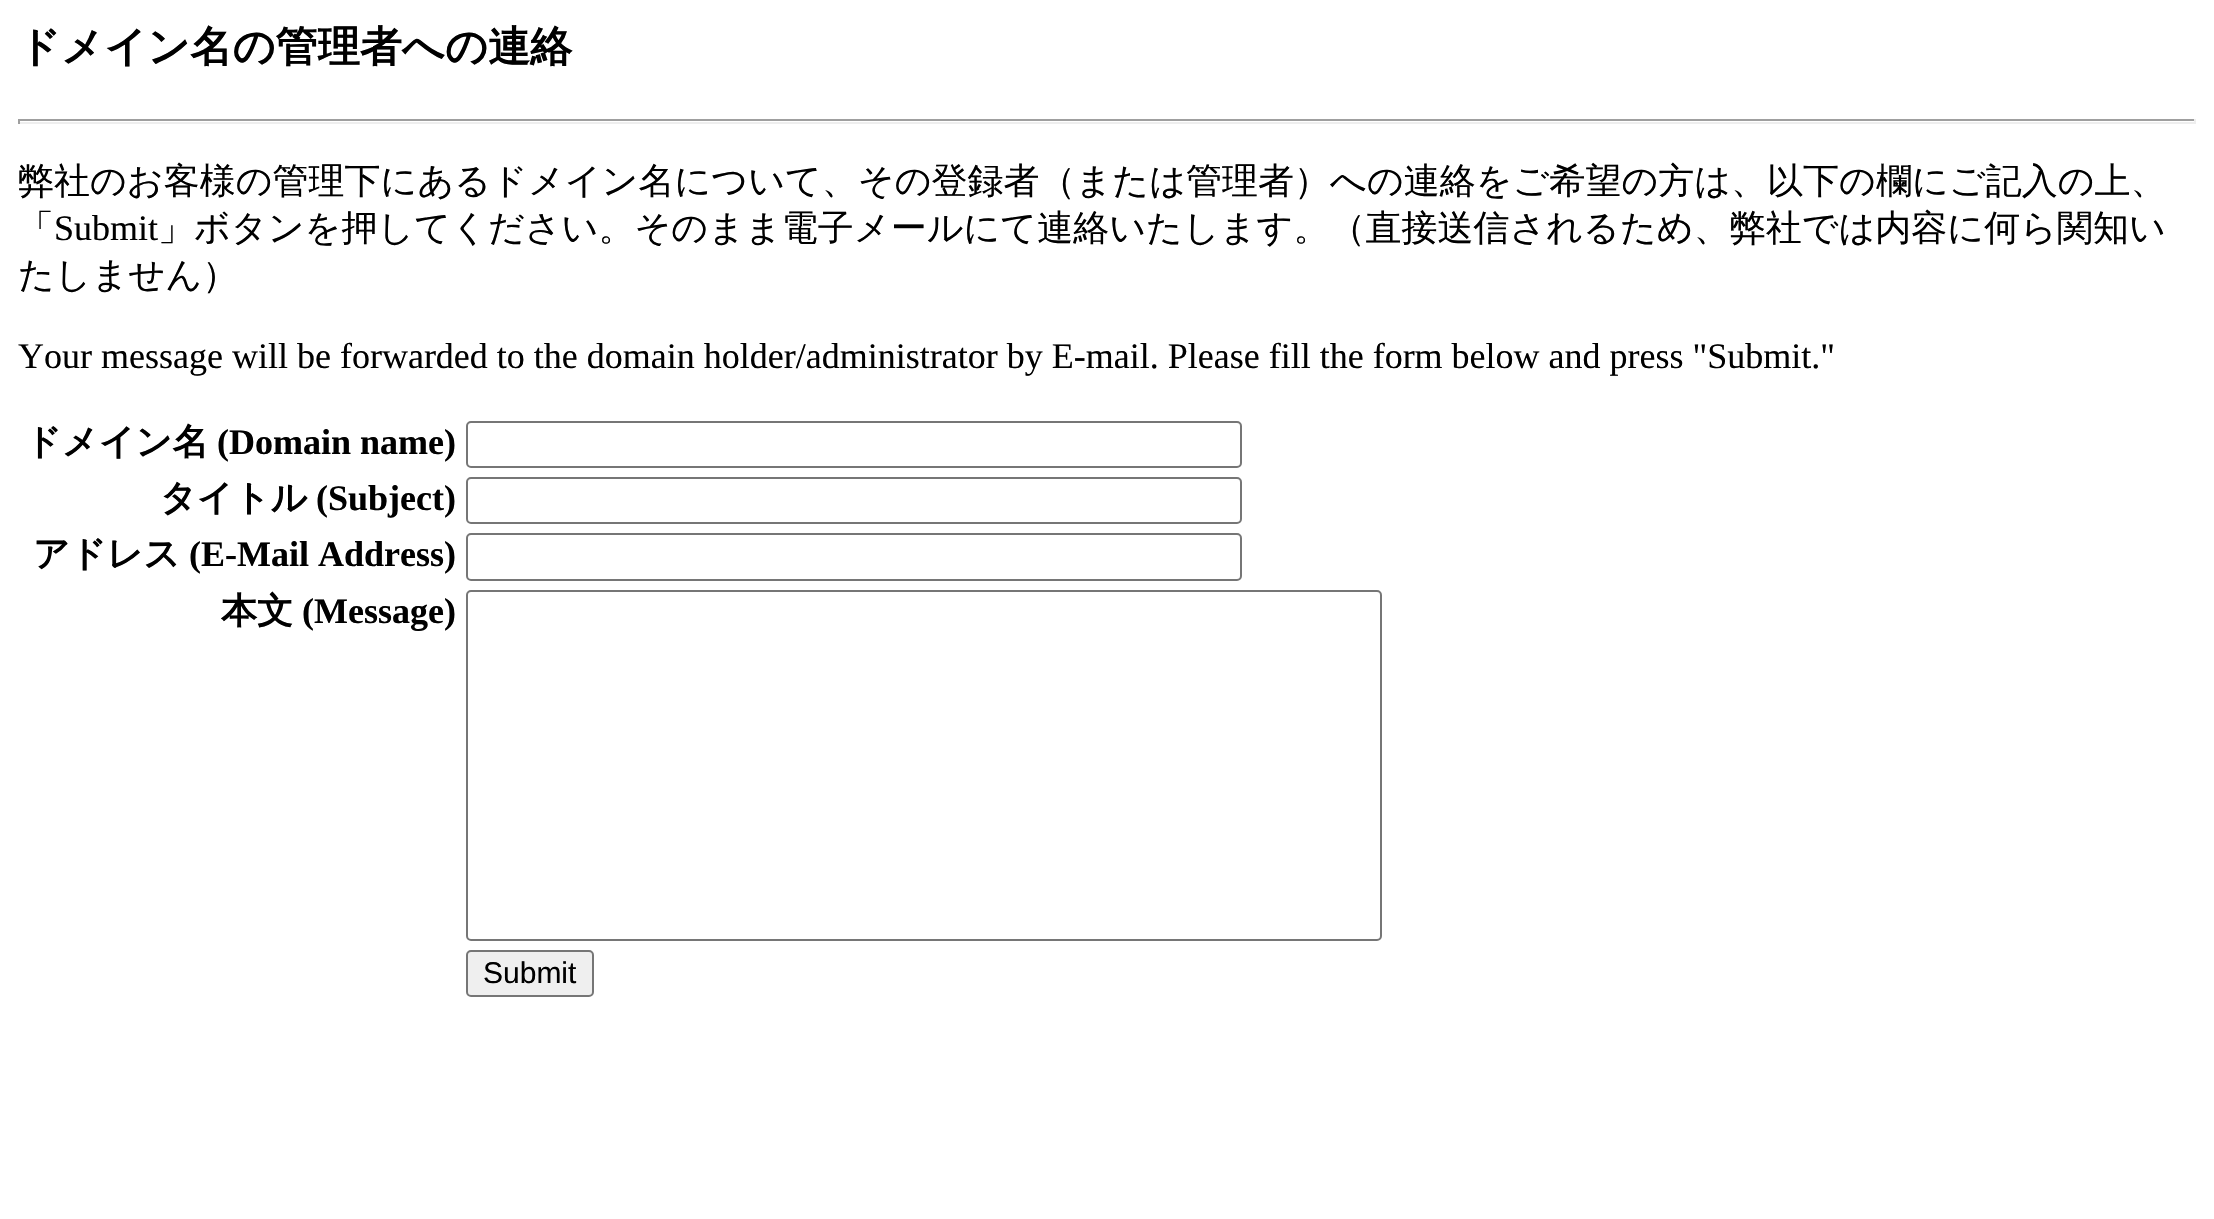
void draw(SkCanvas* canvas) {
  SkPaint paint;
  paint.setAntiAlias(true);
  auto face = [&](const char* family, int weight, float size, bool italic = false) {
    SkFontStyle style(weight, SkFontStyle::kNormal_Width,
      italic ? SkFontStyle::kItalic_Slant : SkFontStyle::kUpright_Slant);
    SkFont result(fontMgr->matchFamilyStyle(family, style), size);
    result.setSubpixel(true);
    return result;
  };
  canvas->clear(0xffffffff);
  {
    const struct { float x, y, w, h; SkColor color; } items[] = {
      {18, 119, 2178, 2, 0xff9f9f9f},
      {2194, 119, 2, 5, 0xffeeeeee},
      {18, 122, 2178, 2, 0xffeeeeee},
      {18, 119, 2, 5, 0xff9f9f9f},
    };
    for (auto [x, y, w, h, color] : items) {
      paint.setColor(color);
      canvas->drawRect(SkRect::MakeXYWH(x, y, w, h), paint);
    }
  }
  paint.setStroke(true);
  paint.setStrokeWidth(2);
  paint.setColor(0xff767676);
  canvas->drawRoundRect(SkRect::MakeXYWH(467, 422, 774, 45), 4, 4, paint);
  canvas->drawRoundRect(SkRect::MakeXYWH(467, 478, 774, 45), 4, 4, paint);
  canvas->drawRoundRect(SkRect::MakeXYWH(467, 534, 774, 46), 4, 4, paint);
  canvas->drawRoundRect(SkRect::MakeXYWH(467, 591, 914, 349), 4, 4, paint);
  paint.setStroke(false);
  paint.setColor(0xffefefef);
  canvas->drawRoundRect(SkRect::MakeXYWH(467, 951, 126, 45), 4, 4, paint);
  paint.setStroke(true);
  paint.setColor(0xff767676);
  canvas->drawRoundRect(SkRect::MakeXYWH(467, 951, 126, 45), 4, 4, paint);
  auto f0 = face("WenQuanYi Zen Hei", 700, 42.1f);
  paint.setStroke(false);
  paint.setColor(0xff000000);
  canvas->drawString("ドメイン名の管理者への連絡", 18, 61, f0, paint);
  auto f1 = face("WenQuanYi Zen Hei", 500, 36);
  canvas->drawString("弊社のお客様の管理下にあるドメイン名について、その登録者（または管理者）への連絡をご希望の方は、以下の欄にご記入の上、", 18, 193, f1, paint);
  canvas->drawString("「", 18, 240, f1, paint);
  auto f2 = face("Liberation Serif", 400, 36);
  canvas->drawString("Submit", 54, 240, f2, paint);
  canvas->drawString("」ボタンを押してください。そのまま電子メールにて連絡いたします。（直接送信されるため、弊社では内容に何ら関知い", 158, 240, f1, paint);
  canvas->drawString("たしません）", 18, 287, f1, paint);
  canvas->drawString("Your message will be forwarded to the domain holder/administrator by E-mail. Please fill the form below and press \"Submit.\"", 18, 368, f2, paint);
  auto f3 = face("WenQuanYi Zen Hei", 700, 36);
  canvas->drawString("ドメイン名", 25, 454, f3, paint);
  auto f4 = face("Liberation Serif", 700, 36);
  canvas->drawString("(Domain name)", 217, 454, f4, paint);
  canvas->drawString("タイトル", 160, 510, f3, paint);
  canvas->drawString("(Subject)", 316, 510, f4, paint);
  canvas->drawString("アドレス", 33, 566, f3, paint);
  canvas->drawString("(E-Mail Address)", 189, 566, f4, paint);
  canvas->drawString("本文", 221, 623, f3, paint);
  canvas->drawString("(Message)", 302, 623, f4, paint);
  auto f5 = face("Liberation Sans", 400, 30);
  canvas->drawString("Submit", 483, 983, f5, paint);
}
